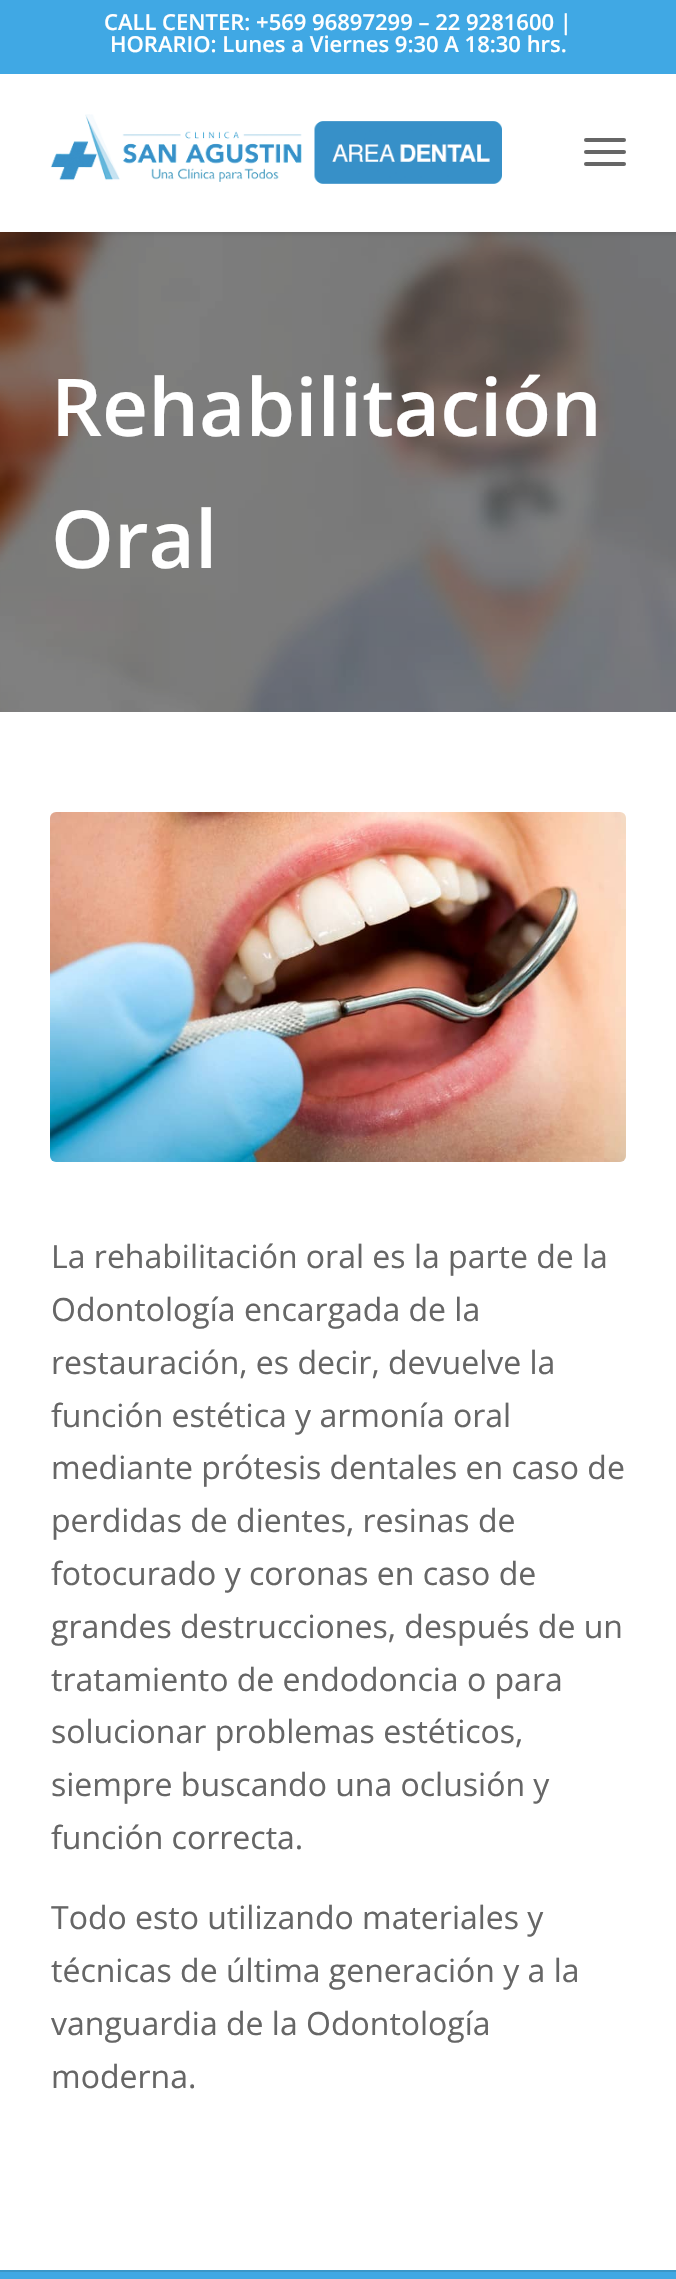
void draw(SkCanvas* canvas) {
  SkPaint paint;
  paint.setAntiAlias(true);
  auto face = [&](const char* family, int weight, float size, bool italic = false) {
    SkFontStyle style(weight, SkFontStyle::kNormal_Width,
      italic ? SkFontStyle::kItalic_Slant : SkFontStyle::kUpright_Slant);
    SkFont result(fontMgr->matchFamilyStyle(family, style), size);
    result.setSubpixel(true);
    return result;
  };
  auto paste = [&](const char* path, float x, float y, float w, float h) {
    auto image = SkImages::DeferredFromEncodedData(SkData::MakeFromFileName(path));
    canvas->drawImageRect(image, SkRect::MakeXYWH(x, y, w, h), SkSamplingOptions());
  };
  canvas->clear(0xffffffff);
  paste("img/2.png", 0, 232, 676, 480);
  paint.setColor(0x1a000000);
  paint.setMaskFilter(SkMaskFilter::MakeBlur(kNormal_SkBlurStyle, 2));
  canvas->drawRect(SkRect::MakeXYWH(-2, -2, 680, 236), paint);
  paint.setMaskFilter(nullptr);
  paint.setColor(0xff40a8e4);
  canvas->drawRect(SkRect::MakeXYWH(0, 0, 676, 74), paint);
  paint.setColor(0xffffffff);
  canvas->drawRect(SkRect::MakeXYWH(0, 74, 676, 158), paint);
  paste("img/1.png", 50, 114, 452, 70);
  paint.setColor(0xff666666);
  canvas->drawRoundRect(SkRect::MakeXYWH(584, 150, 42, 4), 2, 2, paint);
  canvas->drawRoundRect(SkRect::MakeXYWH(584, 138, 42, 4), 2, 2, paint);
  canvas->drawRoundRect(SkRect::MakeXYWH(584, 162, 42, 4), 2, 2, paint);
  paste("img/3.png", 50, 812, 576, 350);
  paint.setColor(0xff40a8e4);
  canvas->drawRect(SkRect::MakeXYWH(0, 2272, 676, 7), paint);
  paint.setColor(0xff3b96c7);
  canvas->drawRect(SkRect::MakeXYWH(0, 2270, 676, 2), paint);
  auto f0 = face("Open Sans", 600, 22);
  paint.setColor(0xffffffff);
  canvas->drawString("CALL CENTER: +569 96897299 – 22 9281600 |", 104, 30, f0, paint);
  canvas->drawString("HORARIO: Lunes a Viernes 9:30 A 18:30 hrs.", 110, 52, f0, paint);
  auto f1 = face("Open Sans", 600, 80);
  canvas->drawString("Rehabilitación", 51, 436, f1, paint);
  canvas->drawString("Oral", 51, 568, f1, paint);
  auto f2 = face("Open Sans", 400, 32);
  paint.setColor(0xff666666);
  {
    const struct { const char* s; float x, y; } items[] = {
      {"La rehabilitación oral es la parte de la", 51, 1268},
      {"Odontología encargada de la", 51, 1321},
      {"restauración, es decir, devuelve la", 51, 1374},
      {"función estética y armonía oral", 51, 1427},
      {"mediante prótesis dentales en caso de", 51, 1479},
      {"perdidas de dientes, resinas de", 51, 1532},
      {"fotocurado y coronas en caso de", 51, 1585},
      {"grandes destrucciones, después de un", 51, 1638},
      {"tratamiento de endodoncia o para", 51, 1691},
      {"solucionar problemas estéticos,", 51, 1743},
      {"siempre buscando una oclusión y", 51, 1796},
      {"función correcta.", 51, 1849},
      {"Todo esto utilizando materiales y", 51, 1929},
      {"técnicas de última generación y a la", 51, 1982},
      {"vanguardia de la Odontología", 51, 2035},
      {"moderna.", 51, 2088},
    };
    for (auto [s, x, y] : items) {
      canvas->drawString(s, x, y, f2, paint);
    }
  }
}
